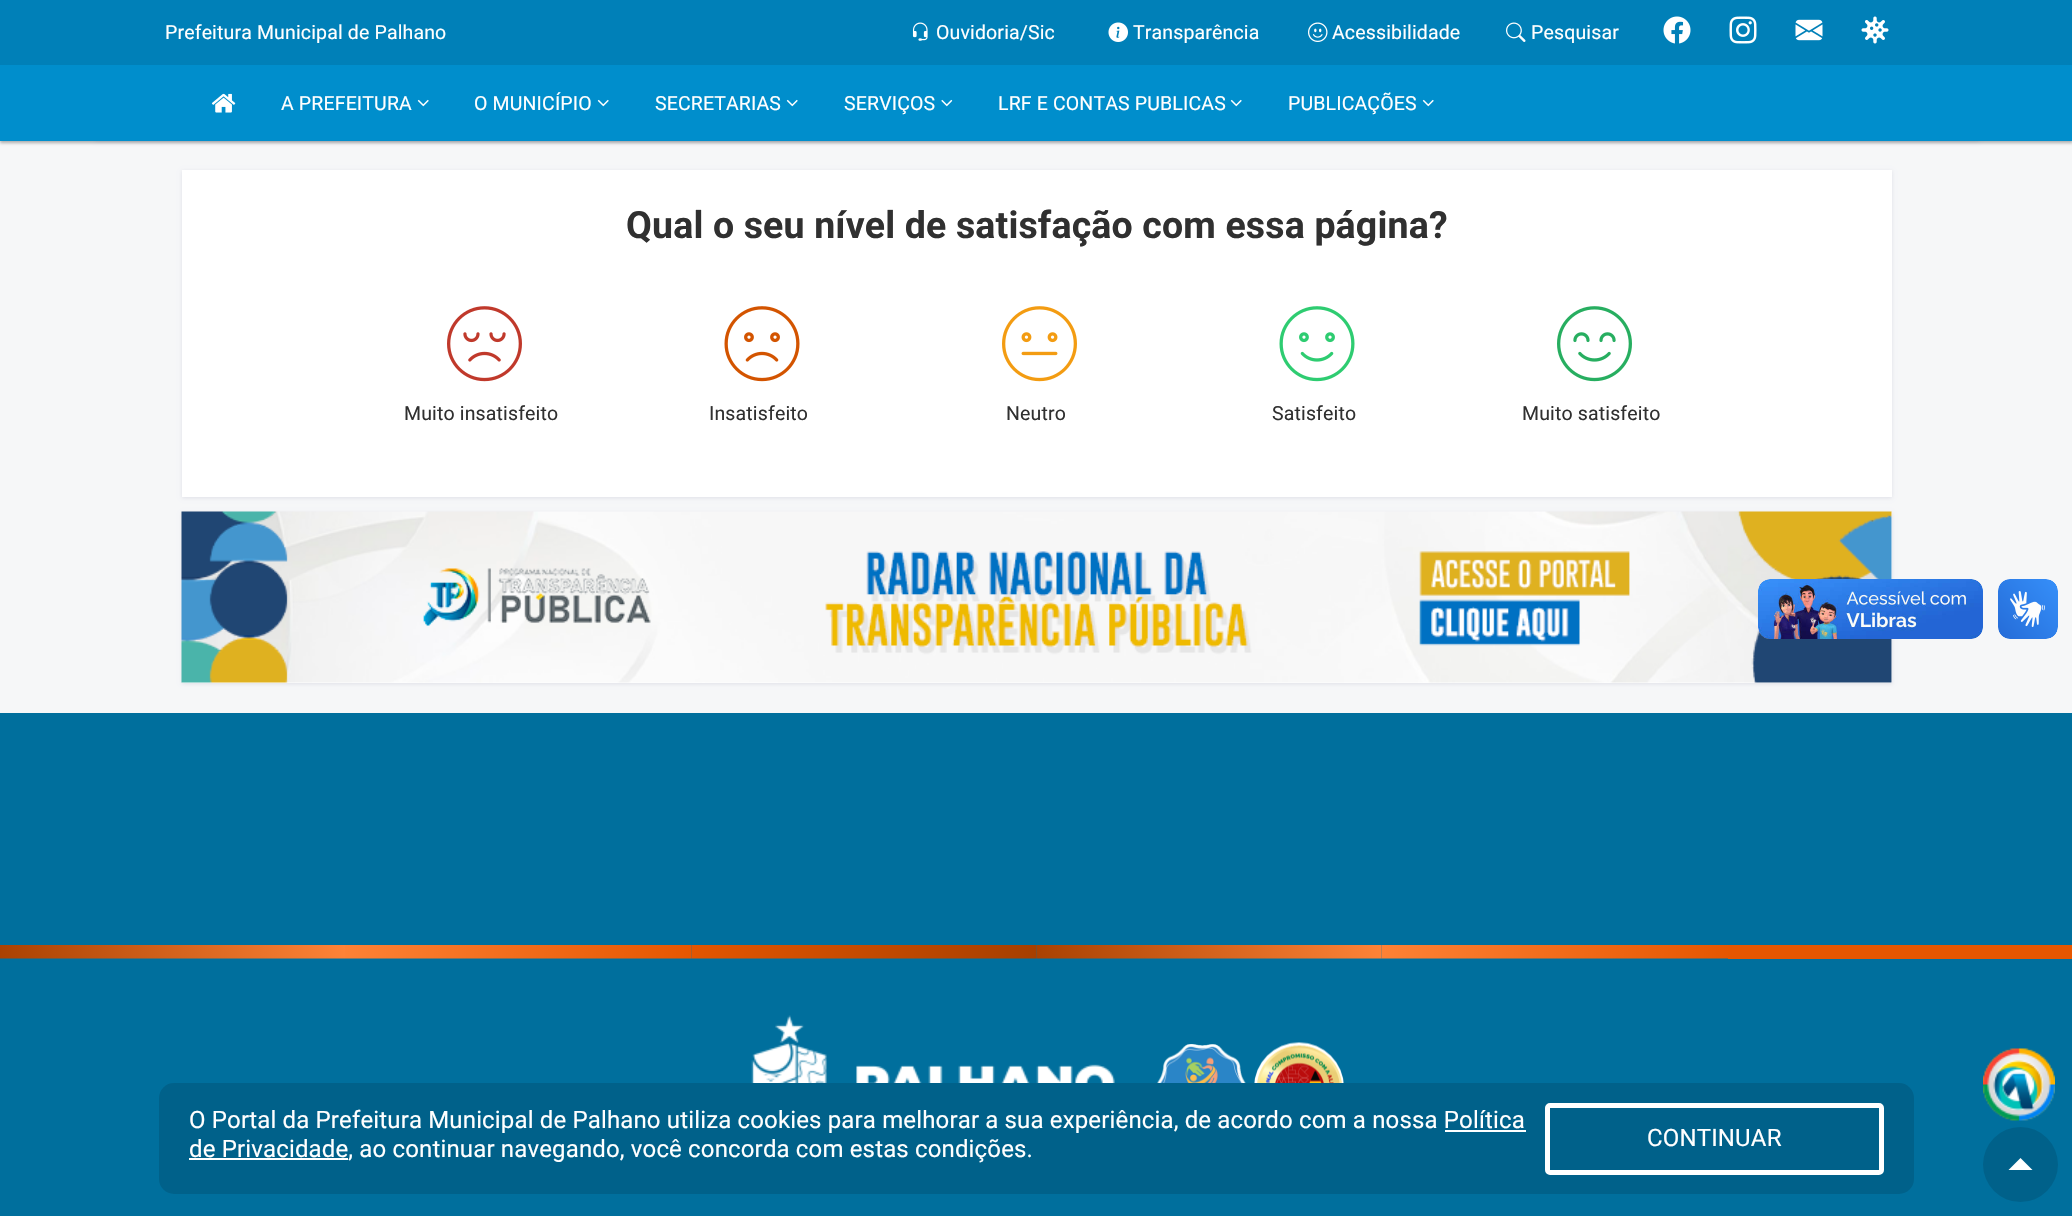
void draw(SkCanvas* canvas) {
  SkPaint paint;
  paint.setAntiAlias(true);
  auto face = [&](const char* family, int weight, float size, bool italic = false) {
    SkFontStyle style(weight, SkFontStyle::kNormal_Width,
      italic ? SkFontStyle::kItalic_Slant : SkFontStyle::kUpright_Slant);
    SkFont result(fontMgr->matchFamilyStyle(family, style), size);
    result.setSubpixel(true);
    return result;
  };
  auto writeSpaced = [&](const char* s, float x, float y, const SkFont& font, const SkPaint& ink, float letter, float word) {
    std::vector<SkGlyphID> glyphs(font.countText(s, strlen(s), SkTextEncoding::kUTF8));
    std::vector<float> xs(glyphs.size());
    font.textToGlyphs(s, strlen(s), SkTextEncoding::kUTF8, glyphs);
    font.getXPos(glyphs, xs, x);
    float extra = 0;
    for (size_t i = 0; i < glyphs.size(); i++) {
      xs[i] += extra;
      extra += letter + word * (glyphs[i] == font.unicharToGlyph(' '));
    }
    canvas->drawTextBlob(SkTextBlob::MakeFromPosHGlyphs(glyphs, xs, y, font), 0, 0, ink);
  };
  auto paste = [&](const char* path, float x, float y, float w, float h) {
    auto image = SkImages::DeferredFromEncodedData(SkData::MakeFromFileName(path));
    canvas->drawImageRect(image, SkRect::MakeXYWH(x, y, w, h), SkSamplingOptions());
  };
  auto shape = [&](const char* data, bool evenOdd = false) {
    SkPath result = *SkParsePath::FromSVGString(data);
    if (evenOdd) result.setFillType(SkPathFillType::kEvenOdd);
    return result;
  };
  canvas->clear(0xfff6f7f8);
  paint.setColor(0x4d000000);
  paint.setMaskFilter(SkMaskFilter::MakeBlur(kNormal_SkBlurStyle, 1.5f));
  canvas->drawRect(SkRect::MakeXYWH(0, 2, 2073, 141), paint);
  paint.setMaskFilter(nullptr);
  paint.setColor(0x17030047);
  paint.setMaskFilter(SkMaskFilter::MakeBlur(kNormal_SkBlurStyle, 2));
  canvas->drawRect(SkRect::MakeXYWH(95, 35, 1884, 106), paint);
  paint.setMaskFilter(nullptr);
  paint.setColor(0xff0080b8);
  canvas->drawRect(SkRect::MakeXYWH(0, 0, 2072, 65), paint);
  paste("img/1.png", 912, 22, 16, 19);
  paste("img/2.png", 1108, 22, 20, 20);
  paste("img/3.png", 1308, 22, 20, 20);
  paste("img/4.png", 1506, 22, 20, 20);
  paste("img/5.png", 1663, 16, 28, 28);
  paste("img/6.png", 1729, 16, 28, 28);
  paste("img/7.png", 1795, 19, 28, 22);
  paste("img/8.png", 1861, 16, 28, 28);
  paint.setColor(0xff008ecc);
  canvas->drawRect(SkRect::MakeXYWH(0, 65, 2072, 76), paint);
  paste("img/9.png", 211, 93, 25, 20);
  paste("img/10.png", 417, 99, 12, 8);
  paste("img/10.png", 597, 99, 12, 8);
  paste("img/10.png", 786, 99, 12, 8);
  paste("img/11.png", 941, 99, 12, 8);
  paste("img/10.png", 1230, 99, 12, 8);
  paste("img/10.png", 1422, 99, 12, 8);
  paint.setColor(0x17030047);
  paint.setMaskFilter(SkMaskFilter::MakeBlur(kNormal_SkBlurStyle, 2));
  canvas->drawRect(SkRect::MakeXYWH(182, 171, 1710, 327), paint);
  paint.setMaskFilter(nullptr);
  paint.setColor(0xffffffff);
  canvas->drawRect(SkRect::MakeXYWH(182, 170, 1710, 327), paint);
  paste("img/12.png", 447, 306, 75, 76);
  paste("img/13.png", 724, 306, 76, 76);
  paste("img/14.png", 1002, 306, 75, 76);
  paste("img/15.png", 1279, 306, 76, 76);
  paste("img/16.png", 1557, 306, 75, 76);
  paint.setColor(0x17030047);
  paint.setMaskFilter(SkMaskFilter::MakeBlur(kNormal_SkBlurStyle, 2));
  canvas->drawRect(SkRect::MakeXYWH(182, 513, 1710, 171), paint);
  paint.setMaskFilter(nullptr);
  paint.setColor(0xffffffff);
  canvas->drawRect(SkRect::MakeXYWH(182, 512, 1710, 171), paint);
  paste("img/17.png", 181, 511, 1711, 172);
  paste("img/18.png", 1758, 579, 225, 60);
  paste("img/19.png", 1998, 579, 60, 60);
  paint.setColor(0xff006f9d);
  canvas->drawRect(SkRect::MakeXYWH(0, 713, 2072, 503), paint);
  paste("img/20.png", 0, 945, 345, 14);
  paste("img/21.png", 345, 945, 347, 14);
  paste("img/22.png", 691, 945, 346, 14);
  paste("img/23.png", 1036, 945, 346, 14);
  paste("img/24.png", 1381, 945, 347, 14);
  paint.setColor(0xffe65600);
  canvas->drawRect(SkRect::MakeXYWH(1728, 945, 344, 14), paint);
  paste("img/25.png", 751, 1015, 364, 68);
  paste("img/26.png", 1157, 1044, 89, 39);
  paste("img/27.png", 1254, 1042, 90, 41);
  paste("img/28.png", 1983, 1048, 72, 73);
  paint.setColor(0xff00618a);
  canvas->drawRoundRect(SkRect::MakeXYWH(159, 1083, 1755, 111), 15, 15, paint);
  paint.setColor(0xffffffff);
  canvas->drawRect(SkRect::MakeXYWH(1445, 1130, 81, 2), paint);
  canvas->drawRect(SkRect::MakeXYWH(189, 1158, 159, 2), paint);
  paint.setStroke(true);
  paint.setStrokeWidth(5);
  canvas->drawRoundRect(SkRect::MakeXYWH(1547.5f, 1105.5f, 334, 67), 2.5f, 2.5f, paint);
  paint.setStroke(false);
  paint.setColor(0xff00618a);
  canvas->drawCircle(2020.5f, 1164.5f, 37.5f, paint);
  paint.setColor(0xffffffff);
  canvas->drawPath(shape("M2032.5 1170H2008.5L2020.5 1158Z"), paint);
  auto f0 = face("Roboto", 400, 19.5f);
  {
    const struct { const char* s; float x, y; } items[] = {
      {"Prefeitura Municipal de Palhano", 165, 39},
      {"Ouvidoria/Sic", 936, 39},
      {"Transparência", 1133, 39},
      {"Acessibilidade", 1332, 39},
      {"Pesquisar", 1531, 39},
      {"A PREFEITURA", 281, 110},
      {"O MUNICÍPIO", 474, 110},
      {"SECRETARIAS", 655, 110},
      {"SERVIÇOS", 844, 110},
      {"LRF E CONTAS PUBLICAS", 998, 110},
      {"PUBLICAÇÕES", 1288, 110},
    };
    for (auto [s, x, y] : items) {
      writeSpaced(s, x, y, f0, paint, 0.15f, 0);
    }
  }
  auto f1 = face("Roboto", 700, 37.5f);
  paint.setColor(0xff303030);
  writeSpaced("Qual o seu nível de satisfação com essa página?", 626, 238, f1, paint, 0.15f, 0);
  {
    const struct { const char* s; float x, y; } items[] = {
      {"Muito insatisfeito", 404, 420},
      {"Insatisfeito", 709, 420},
      {"Neutro", 1006, 420},
      {"Satisfeito", 1272, 420},
      {"Muito satisfeito", 1522, 420},
    };
    for (auto [s, x, y] : items) {
      writeSpaced(s, x, y, f0, paint, 0.15f, 0);
    }
  }
  auto f2 = face("Roboto", 400, 24);
  paint.setColor(0xffffffff);
  {
    const struct { const char* s; float x, y; } items[] = {
      {"O Portal da Prefeitura Municipal de Palhano utiliza cookies para melhorar a sua experiência, de acordo com a nossa Política", 189, 1128},
      {"de Privacidade, ao continuar navegando, você concorda com estas condições.", 189, 1157},
      {"CONTINUAR", 1647, 1146},
    };
    for (auto [s, x, y] : items) {
      writeSpaced(s, x, y, f2, paint, 0.15f, 0);
    }
  }
}
